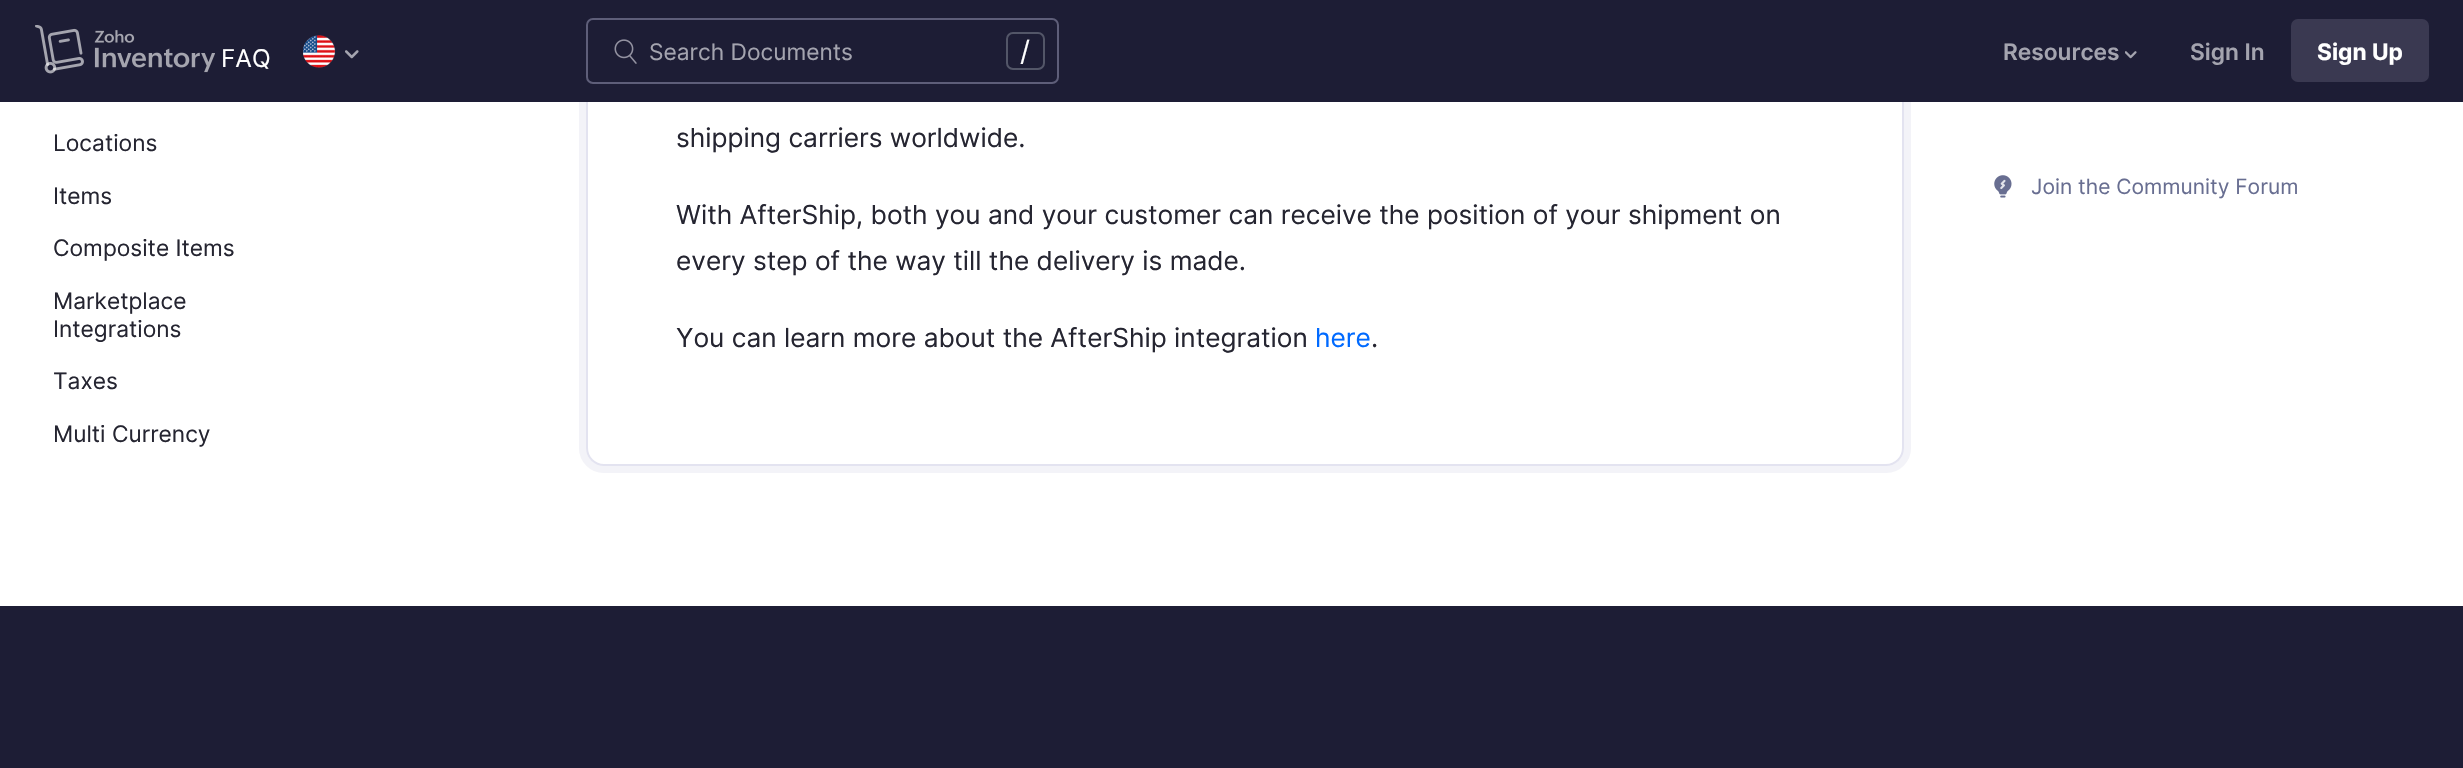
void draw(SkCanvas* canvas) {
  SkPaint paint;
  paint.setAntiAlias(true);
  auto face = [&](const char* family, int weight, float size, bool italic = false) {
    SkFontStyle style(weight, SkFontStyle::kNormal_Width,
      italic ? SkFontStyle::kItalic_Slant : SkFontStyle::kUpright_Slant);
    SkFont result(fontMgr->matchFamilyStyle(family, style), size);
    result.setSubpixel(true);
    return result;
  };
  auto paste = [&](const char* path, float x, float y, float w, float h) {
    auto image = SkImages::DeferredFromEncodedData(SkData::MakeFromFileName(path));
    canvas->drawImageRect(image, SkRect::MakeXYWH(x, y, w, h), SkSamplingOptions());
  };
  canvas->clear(0xffffffff);
  paint.setStroke(true);
  paint.setStrokeWidth(7);
  paint.setColor(0xfff3f3f8);
  canvas->drawRoundRect(SkRect::MakeXYWH(582.5f, -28.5f, 1325, 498), 21.5f, 21.5f, paint);
  paint.setStrokeWidth(2);
  paint.setColor(0xffe3e3f0);
  canvas->drawRoundRect(SkRect::MakeXYWH(587, -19, 1316, 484), 17, 17, paint);
  paint.setStroke(false);
  paint.setColor(0xff1d1d35);
  canvas->drawRect(SkRect::MakeXYWH(0, 0, 2463, 102), paint);
  paste("img/1.png", 35, 25, 180, 49);
  paste("img/2.png", 303, 35, 33, 33);
  paste("img/3.png", 345, 50, 14, 9);
  paste("img/4.png", 614, 39, 23, 25);
  paint.setStroke(true);
  paint.setColor(0xff5e5e79);
  canvas->drawRoundRect(SkRect::MakeXYWH(587, 19, 471, 64), 6, 6, paint);
  paint.setColor(0xff535668);
  canvas->drawRoundRect(SkRect::MakeXYWH(1007, 33, 37, 36), 6, 6, paint);
  paste("img/5.png", 2125, 51, 12, 8);
  paint.setStroke(false);
  paint.setColor(0xff3a3951);
  canvas->drawRoundRect(SkRect::MakeXYWH(2291, 19, 138, 63), 7, 7, paint);
  paste("img/6.png", 1994, 175, 18, 23);
  paint.setColor(0xff1d1d35);
  canvas->drawRect(SkRect::MakeXYWH(0, 606, 2463, 162), paint);
  auto f0 = face("Inter", 400, 24.5f);
  paint.setColor(0xffffffff);
  canvas->drawString("FAQ", 221, 67, f0, paint);
  auto f1 = face("Inter", 400, 22.75f);
  paint.setColor(0xffa4a4af);
  canvas->drawString("Search Documents", 649, 60, f1, paint);
  auto f2 = face("Inter", 400, 28);
  paint.setColor(0xffffffff);
  canvas->drawString("/", 1020, 61, f2, paint);
  auto f3 = face("Inter", 600, 22.75f);
  paint.setColor(0xffa4a4af);
  canvas->drawString("Resources", 2003, 60, f3, paint);
  canvas->drawString("Sign In", 2190, 60, f3, paint);
  auto f4 = face("Inter", 700, 22.75f);
  paint.setColor(0xffffffff);
  canvas->drawString("Sign Up", 2317, 60, f4, paint);
  paint.setColor(0xff252531);
  {
    const struct { const char* s; float x, y; } items[] = {
      {"Locations", 53, 151},
      {"Items", 53, 204},
      {"Composite Items", 53, 256},
      {"Marketplace", 53, 309},
      {"Integrations", 53, 337},
      {"Taxes", 53, 389},
      {"Multi Currency", 53, 442},
    };
    for (auto [s, x, y] : items) {
      canvas->drawString(s, x, y, f1, paint);
    }
  }
  auto f5 = face("Inter", 400, 26.25f);
  {
    const struct { const char* s; float x, y; } items[] = {
      {"shipping carriers worldwide.", 676, 147},
      {"With AfterShip, both you and your customer can receive the position of your shipment on", 676, 224},
      {"every step of the way till the delivery is made.", 676, 270},
      {"You can learn more about the AfterShip integration", 676, 347},
    };
    for (auto [s, x, y] : items) {
      canvas->drawString(s, x, y, f5, paint);
    }
  }
  paint.setColor(0xff006aff);
  canvas->drawString("here", 1315, 347, f5, paint);
  paint.setColor(0xff252531);
  canvas->drawString(".", 1371, 347, f5, paint);
  auto f6 = face("Inter", 400, 21);
  paint.setColor(0xff686e91);
  canvas->drawString("Join the Community Forum", 2031, 194, f6, paint);
}
